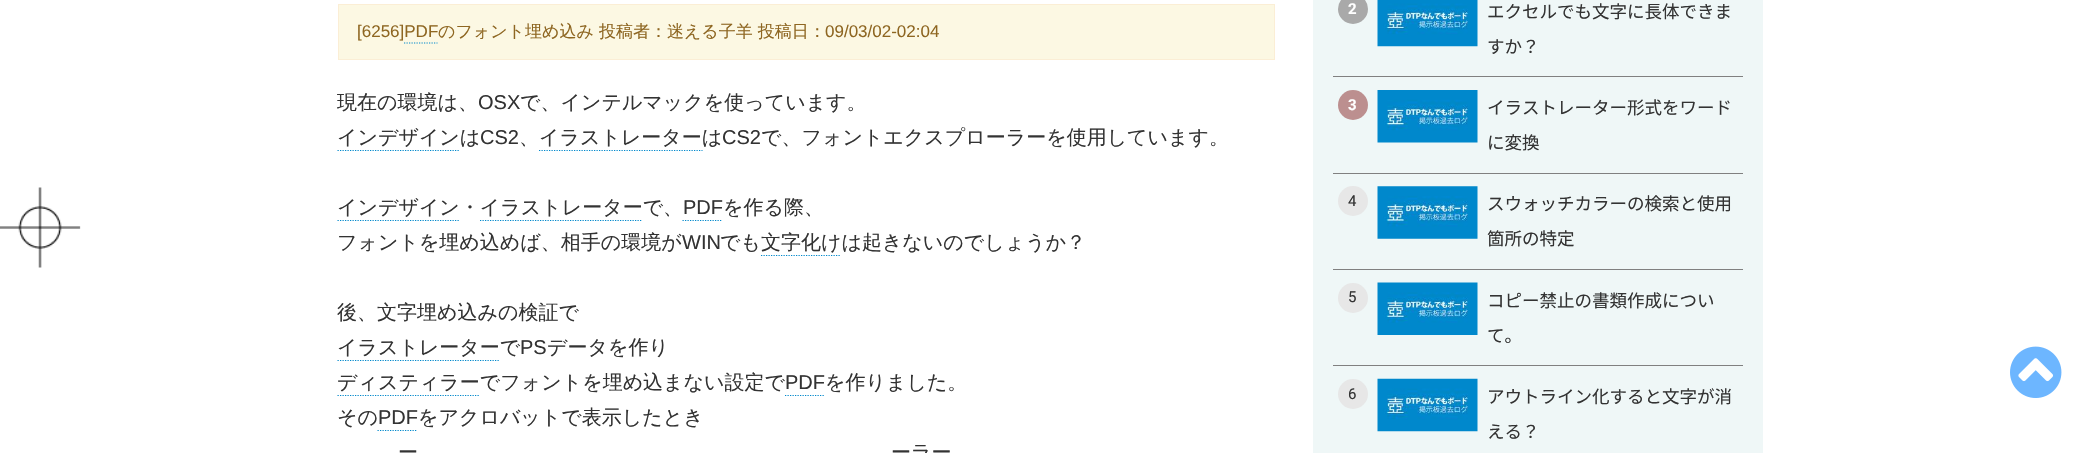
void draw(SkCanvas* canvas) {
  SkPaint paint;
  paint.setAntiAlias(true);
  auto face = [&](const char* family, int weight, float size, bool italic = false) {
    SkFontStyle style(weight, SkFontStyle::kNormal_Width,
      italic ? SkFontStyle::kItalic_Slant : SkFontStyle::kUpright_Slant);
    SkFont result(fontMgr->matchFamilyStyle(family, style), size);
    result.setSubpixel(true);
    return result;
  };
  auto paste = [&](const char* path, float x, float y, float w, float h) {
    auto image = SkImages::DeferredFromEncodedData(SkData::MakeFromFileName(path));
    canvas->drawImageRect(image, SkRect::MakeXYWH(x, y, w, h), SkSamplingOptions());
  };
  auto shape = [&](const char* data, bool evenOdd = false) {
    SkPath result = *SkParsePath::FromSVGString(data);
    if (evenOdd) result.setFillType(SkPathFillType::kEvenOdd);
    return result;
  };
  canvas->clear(0xffffffff);
  paste("img/1.png", 0, 187, 81, 81);
  paint.setColor(0xfffcf8e3);
  canvas->drawRect(SkRect::MakeXYWH(338.5f, 4.5f, 936, 55), paint);
  paint.setStroke(true);
  paint.setStrokeWidth(1);
  paint.setColor(0xfffbeed5);
  canvas->drawRect(SkRect::MakeXYWH(338.5f, 4.5f, 936, 55), paint);
  paint.setStrokeWidth(1.2f);
  paint.setColor(0xff0088cc);
  paint.setPathEffect(SkDashPathEffect::Make({{1.25f, 1.25f}}, 0));
  canvas->drawPath(shape("M404 43H437.5"), paint);
  paint.setPathEffect(nullptr);
  paint.setPathEffect(SkDashPathEffect::Make({{1.25f, 1.25f}}, 0));
  canvas->drawPath(shape("M337.5 150.5H460"), paint);
  paint.setPathEffect(nullptr);
  paint.setPathEffect(SkDashPathEffect::Make({{1.25f, 1.25f}}, 0));
  canvas->drawPath(shape("M539 150.5H702.5"), paint);
  paint.setPathEffect(nullptr);
  paint.setPathEffect(SkDashPathEffect::Make({{1.25f, 1.25f}}, 0));
  canvas->drawPath(shape("M337.5 220.5H460"), paint);
  paint.setPathEffect(nullptr);
  paint.setPathEffect(SkDashPathEffect::Make({{1.25f, 1.25f}}, 0));
  canvas->drawPath(shape("M682.5 220.5H722.5"), paint);
  paint.setPathEffect(nullptr);
  paint.setPathEffect(SkDashPathEffect::Make({{1.25f, 1.25f}}, 0));
  canvas->drawPath(shape("M480 220.5H642.5"), paint);
  paint.setPathEffect(nullptr);
  paint.setPathEffect(SkDashPathEffect::Make({{1.25f, 1.25f}}, 0));
  canvas->drawPath(shape("M761 255.5H841"), paint);
  paint.setPathEffect(nullptr);
  paint.setPathEffect(SkDashPathEffect::Make({{1.25f, 1.25f}}, 0));
  canvas->drawPath(shape("M337.5 360.5H500"), paint);
  paint.setPathEffect(nullptr);
  paint.setPathEffect(SkDashPathEffect::Make({{1.25f, 1.25f}}, 0));
  canvas->drawPath(shape("M337.5 395.5H480"), paint);
  paint.setPathEffect(nullptr);
  paint.setPathEffect(SkDashPathEffect::Make({{1.25f, 1.25f}}, 0));
  canvas->drawPath(shape("M785 395.5H825"), paint);
  paint.setPathEffect(nullptr);
  paint.setPathEffect(SkDashPathEffect::Make({{1.25f, 1.25f}}, 0));
  canvas->drawPath(shape("M377.5 430.5H417.5"), paint);
  paint.setPathEffect(nullptr);
  paint.setStroke(false);
  paint.setColor(0xffeff7f7);
  canvas->drawRect(SkRect::MakeXYWH(1313, 0, 450, 453), paint);
  paint.setColor(0xff808080);
  canvas->drawRect(SkRect::MakeXYWH(1333, 76, 410, 1), paint);
  paint.setColor(0xffa9a9a9);
  canvas->drawCircle(1353, 9, 15, paint);
  paste("img/2.png", 1377, 0, 101, 47);
  paint.setColor(0xff808080);
  canvas->drawRect(SkRect::MakeXYWH(1333, 173, 410, 1), paint);
  paint.setColor(0xffbc8f8f);
  canvas->drawCircle(1353, 105, 15, paint);
  paste("img/3.png", 1377, 90, 101, 53);
  paint.setColor(0xff808080);
  canvas->drawRect(SkRect::MakeXYWH(1333, 269, 410, 1), paint);
  paint.setColor(0xffe7e7e7);
  canvas->drawCircle(1353, 201, 15, paint);
  paste("img/4.png", 1377, 186, 101, 53);
  paint.setColor(0xff808080);
  canvas->drawRect(SkRect::MakeXYWH(1333, 365, 410, 1), paint);
  paint.setColor(0xffe7e7e7);
  canvas->drawCircle(1353, 298, 15, paint);
  paste("img/5.png", 1377, 282, 101, 53);
  canvas->drawCircle(1353, 394, 15, paint);
  paste("img/6.png", 1377, 378, 101, 54);
  paste("img/7.png", 2010, 346, 52, 52);
  auto f0 = face("Liberation Sans", 400, 17);
  paint.setColor(0xff8e6621);
  canvas->drawString("[6256]PDF", 357, 37, f0, paint);
  auto f1 = face("WenQuanYi Zen Hei", 500, 17);
  canvas->drawString("のフォント埋め込み 投稿者：迷える子羊 投稿日：", 438, 37, f1, paint);
  canvas->drawString("09/03/02-02:04", 825, 37, f0, paint);
  auto f2 = face("WenQuanYi Zen Hei", 500, 20);
  paint.setColor(0xff333333);
  canvas->drawString("現在の環境は、", 337, 109, f2, paint);
  auto f3 = face("Liberation Sans", 400, 20);
  canvas->drawString("OSX", 478, 109, f3, paint);
  canvas->drawString("で、インテルマックを使っています。", 520, 109, f2, paint);
  canvas->drawString("インデザインは", 337, 144, f2, paint);
  canvas->drawString("CS2", 480, 144, f3, paint);
  canvas->drawString("、イラストレーターは", 519, 144, f2, paint);
  canvas->drawString("CS2", 722, 144, f3, paint);
  canvas->drawString("で、フォントエクスプローラーを使用しています。", 761, 144, f2, paint);
  canvas->drawString("インデザイン・イラストレーターで、", 337, 214, f2, paint);
  canvas->drawString("PDF", 683, 214, f3, paint);
  canvas->drawString("を作る際、", 723, 214, f2, paint);
  canvas->drawString("フォントを埋め込めば、相手の環境が", 337, 249, f2, paint);
  canvas->drawString("WIN", 682, 249, f3, paint);
  {
    const struct { const char* s; float x, y; } items[] = {
      {"でも文字化けは起きないのでしょうか？", 720, 249},
      {"後、文字埋め込みの検証で", 337, 319},
      {"イラストレーターで", 337, 354},
    };
    for (auto [s, x, y] : items) {
      canvas->drawString(s, x, y, f2, paint);
    }
  }
  canvas->drawString("PS", 520, 354, f3, paint);
  canvas->drawString("データを作り", 547, 354, f2, paint);
  canvas->drawString("ディスティラーでフォントを埋め込まない設定で", 337, 389, f2, paint);
  canvas->drawString("PDF", 785, 389, f3, paint);
  canvas->drawString("を作りました。", 825, 389, f2, paint);
  canvas->drawString("その", 337, 424, f2, paint);
  canvas->drawString("PDF", 378, 424, f3, paint);
  {
    const struct { const char* s; float x, y; } items[] = {
      {"をアクロバットで表示したとき", 418, 424},
      {"ー", 398, 459},
      {"ーラー", 891, 459},
    };
    for (auto [s, x, y] : items) {
      canvas->drawString(s, x, y, f2, paint);
    }
  }
  auto f4 = face("Roboto", 700, 15);
  paint.setColor(0xffffffff);
  canvas->drawString("2", 1348, 14, f4, paint);
  auto f5 = face("Noto Sans JP", 400, 17.5f);
  paint.setColor(0xff333333);
  canvas->drawString("エクセルでも文字に長体できま", 1487, 18, f5, paint);
  canvas->drawString("すか？", 1487, 53, f5, paint);
  paint.setColor(0xffffffff);
  canvas->drawString("3", 1348, 110, f4, paint);
  paint.setColor(0xff333333);
  canvas->drawString("イラストレーター形式をワード", 1487, 114, f5, paint);
  canvas->drawString("に変換", 1487, 149, f5, paint);
  auto f6 = face("Roboto", 400, 15);
  canvas->drawString("4", 1348, 206, f6, paint);
  canvas->drawString("スウォッチカラーの検索と使用", 1487, 210, f5, paint);
  canvas->drawString("箇所の特定", 1487, 245, f5, paint);
  canvas->drawString("5", 1348, 302, f6, paint);
  canvas->drawString("コピー禁止の書類作成につい", 1487, 307, f5, paint);
  canvas->drawString("て。", 1487, 342, f5, paint);
  canvas->drawString("6", 1348, 399, f6, paint);
  canvas->drawString("アウトライン化すると文字が消", 1487, 403, f5, paint);
  canvas->drawString("える？", 1487, 438, f5, paint);
}
